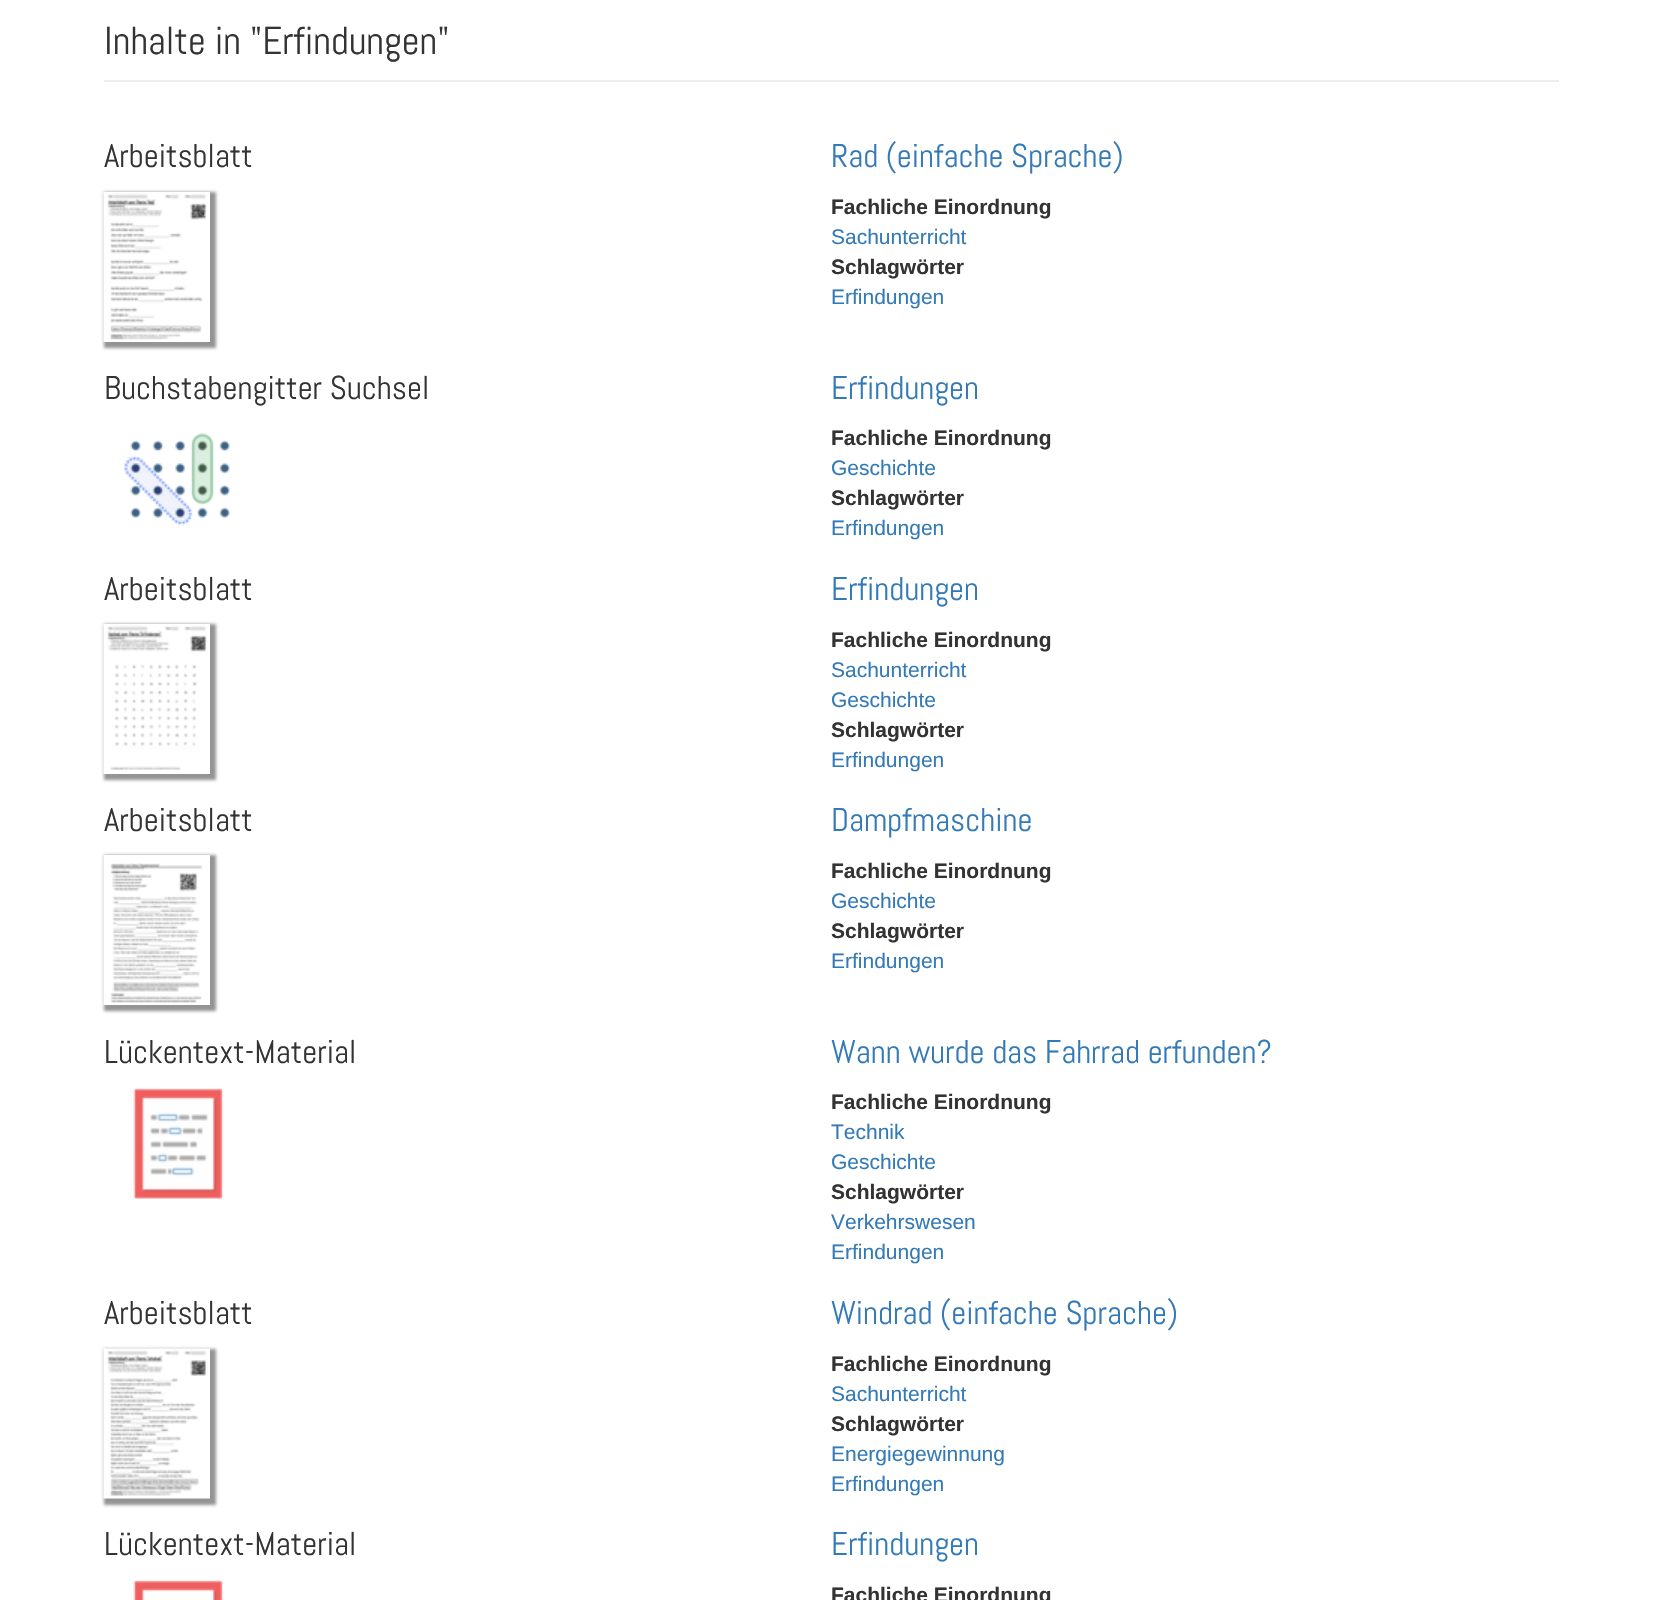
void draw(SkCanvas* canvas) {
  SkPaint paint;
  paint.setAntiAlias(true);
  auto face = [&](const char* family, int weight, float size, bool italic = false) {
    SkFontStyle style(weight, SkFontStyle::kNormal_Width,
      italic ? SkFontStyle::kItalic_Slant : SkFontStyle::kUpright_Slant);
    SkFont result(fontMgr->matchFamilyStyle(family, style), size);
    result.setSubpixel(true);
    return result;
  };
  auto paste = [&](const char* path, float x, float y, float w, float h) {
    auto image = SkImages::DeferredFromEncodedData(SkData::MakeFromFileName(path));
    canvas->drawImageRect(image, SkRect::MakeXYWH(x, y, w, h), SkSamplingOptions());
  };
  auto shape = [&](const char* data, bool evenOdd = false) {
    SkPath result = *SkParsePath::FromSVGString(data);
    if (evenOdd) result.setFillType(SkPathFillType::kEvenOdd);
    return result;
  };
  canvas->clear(0xffffffff);
  paint.setColor(0xffeeeeee);
  canvas->drawRect(SkRect::MakeXYWH(104, 80, 1455, 2), paint);
  canvas->save();
  canvas->clipPath(shape("M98 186H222V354H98ZM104 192H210V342H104Z", true), true);
  paint.setColor(0xff949494);
  paint.setMaskFilter(SkMaskFilter::MakeBlur(kNormal_SkBlurStyle, 1.5f));
  canvas->drawRect(SkRect::MakeXYWH(104, 192, 112, 156), paint);
  paint.setMaskFilter(nullptr);
  canvas->restore();
  paste("img/1.png", 103, 192, 104, 150);
  paste("img/2.png", 124, 433, 106, 93);
  canvas->save();
  canvas->clipPath(shape("M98 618H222V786H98ZM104 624H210V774H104Z", true), true);
  paint.setMaskFilter(SkMaskFilter::MakeBlur(kNormal_SkBlurStyle, 1.5f));
  canvas->drawRect(SkRect::MakeXYWH(104, 624, 112, 156), paint);
  paint.setMaskFilter(nullptr);
  canvas->restore();
  paste("img/3.png", 103, 624, 104, 150);
  canvas->save();
  canvas->clipPath(shape("M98 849H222V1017H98ZM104 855H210V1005H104Z", true), true);
  paint.setMaskFilter(SkMaskFilter::MakeBlur(kNormal_SkBlurStyle, 1.5f));
  canvas->drawRect(SkRect::MakeXYWH(104, 855, 112, 156), paint);
  paint.setMaskFilter(nullptr);
  canvas->restore();
  paste("img/4.png", 103, 855, 100, 150);
  paste("img/5.png", 133, 1088, 90, 111);
  paint.setMaskFilter(SkMaskFilter::MakeBlur(kNormal_SkBlurStyle, 1.5f));
  canvas->drawRect(SkRect::MakeXYWH(104, 1349, 112, 156), paint);
  paint.setMaskFilter(nullptr);
  paste("img/6.png", 103, 1348, 107, 151);
  paste("img/7.png", 133, 1580, 90, 20);
  auto f0 = face("Abel", 400, 39);
  paint.setColor(0xff333333);
  canvas->drawString("Inhalte in \"Erfindungen\"", 104, 54, f0, paint);
  auto f1 = face("Abel", 400, 33);
  canvas->drawString("Arbeitsblatt", 104, 167, f1, paint);
  paint.setColor(0xff337ab7);
  canvas->drawString("Rad (einfache Sprache)", 831, 167, f1, paint);
  auto f2 = face("Liberation Sans", 700, 21);
  paint.setColor(0xff333333);
  canvas->drawString("Fachliche Einordnung", 831, 214, f2, paint);
  auto f3 = face("Liberation Sans", 400, 21);
  paint.setColor(0xff337ab7);
  canvas->drawString("Sachunterricht", 831, 244, f3, paint);
  paint.setColor(0xff333333);
  canvas->drawString("Schlagwörter", 831, 274, f2, paint);
  paint.setColor(0xff337ab7);
  canvas->drawString("Erfindungen", 831, 304, f3, paint);
  paint.setColor(0xff333333);
  canvas->drawString("Buchstabengitter Suchsel", 104, 399, f1, paint);
  paint.setColor(0xff337ab7);
  canvas->drawString("Erfindungen", 831, 399, f1, paint);
  paint.setColor(0xff333333);
  canvas->drawString("Fachliche Einordnung", 831, 445, f2, paint);
  paint.setColor(0xff337ab7);
  canvas->drawString("Geschichte", 831, 475, f3, paint);
  paint.setColor(0xff333333);
  canvas->drawString("Schlagwörter", 831, 505, f2, paint);
  paint.setColor(0xff337ab7);
  canvas->drawString("Erfindungen", 831, 535, f3, paint);
  paint.setColor(0xff333333);
  canvas->drawString("Arbeitsblatt", 104, 600, f1, paint);
  paint.setColor(0xff337ab7);
  canvas->drawString("Erfindungen", 831, 600, f1, paint);
  paint.setColor(0xff333333);
  canvas->drawString("Fachliche Einordnung", 831, 647, f2, paint);
  paint.setColor(0xff337ab7);
  canvas->drawString("Sachunterricht", 831, 677, f3, paint);
  canvas->drawString("Geschichte", 831, 707, f3, paint);
  paint.setColor(0xff333333);
  canvas->drawString("Schlagwörter", 831, 737, f2, paint);
  paint.setColor(0xff337ab7);
  canvas->drawString("Erfindungen", 831, 767, f3, paint);
  paint.setColor(0xff333333);
  canvas->drawString("Arbeitsblatt", 104, 831, f1, paint);
  paint.setColor(0xff337ab7);
  canvas->drawString("Dampfmaschine", 831, 831, f1, paint);
  paint.setColor(0xff333333);
  canvas->drawString("Fachliche Einordnung", 831, 878, f2, paint);
  paint.setColor(0xff337ab7);
  canvas->drawString("Geschichte", 831, 908, f3, paint);
  paint.setColor(0xff333333);
  canvas->drawString("Schlagwörter", 831, 938, f2, paint);
  paint.setColor(0xff337ab7);
  canvas->drawString("Erfindungen", 831, 968, f3, paint);
  paint.setColor(0xff333333);
  canvas->drawString("Lückentext-Material", 104, 1063, f1, paint);
  paint.setColor(0xff337ab7);
  canvas->drawString("Wann wurde das Fahrrad erfunden?", 831, 1063, f1, paint);
  paint.setColor(0xff333333);
  canvas->drawString("Fachliche Einordnung", 831, 1109, f2, paint);
  paint.setColor(0xff337ab7);
  canvas->drawString("Technik", 831, 1139, f3, paint);
  canvas->drawString("Geschichte", 831, 1169, f3, paint);
  paint.setColor(0xff333333);
  canvas->drawString("Schlagwörter", 831, 1199, f2, paint);
  paint.setColor(0xff337ab7);
  canvas->drawString("Verkehrswesen", 831, 1229, f3, paint);
  canvas->drawString("Erfindungen", 831, 1259, f3, paint);
  paint.setColor(0xff333333);
  canvas->drawString("Arbeitsblatt", 104, 1324, f1, paint);
  paint.setColor(0xff337ab7);
  canvas->drawString("Windrad (einfache Sprache)", 831, 1324, f1, paint);
  paint.setColor(0xff333333);
  canvas->drawString("Fachliche Einordnung", 831, 1371, f2, paint);
  paint.setColor(0xff337ab7);
  canvas->drawString("Sachunterricht", 831, 1401, f3, paint);
  paint.setColor(0xff333333);
  canvas->drawString("Schlagwörter", 831, 1431, f2, paint);
  paint.setColor(0xff337ab7);
  canvas->drawString("Energiegewinnung", 831, 1461, f3, paint);
  canvas->drawString("Erfindungen", 831, 1491, f3, paint);
  paint.setColor(0xff333333);
  canvas->drawString("Lückentext-Material", 104, 1555, f1, paint);
  paint.setColor(0xff337ab7);
  canvas->drawString("Erfindungen", 831, 1555, f1, paint);
  paint.setColor(0xff333333);
  canvas->drawString("Fachliche Einordnung", 831, 1602, f2, paint);
}
